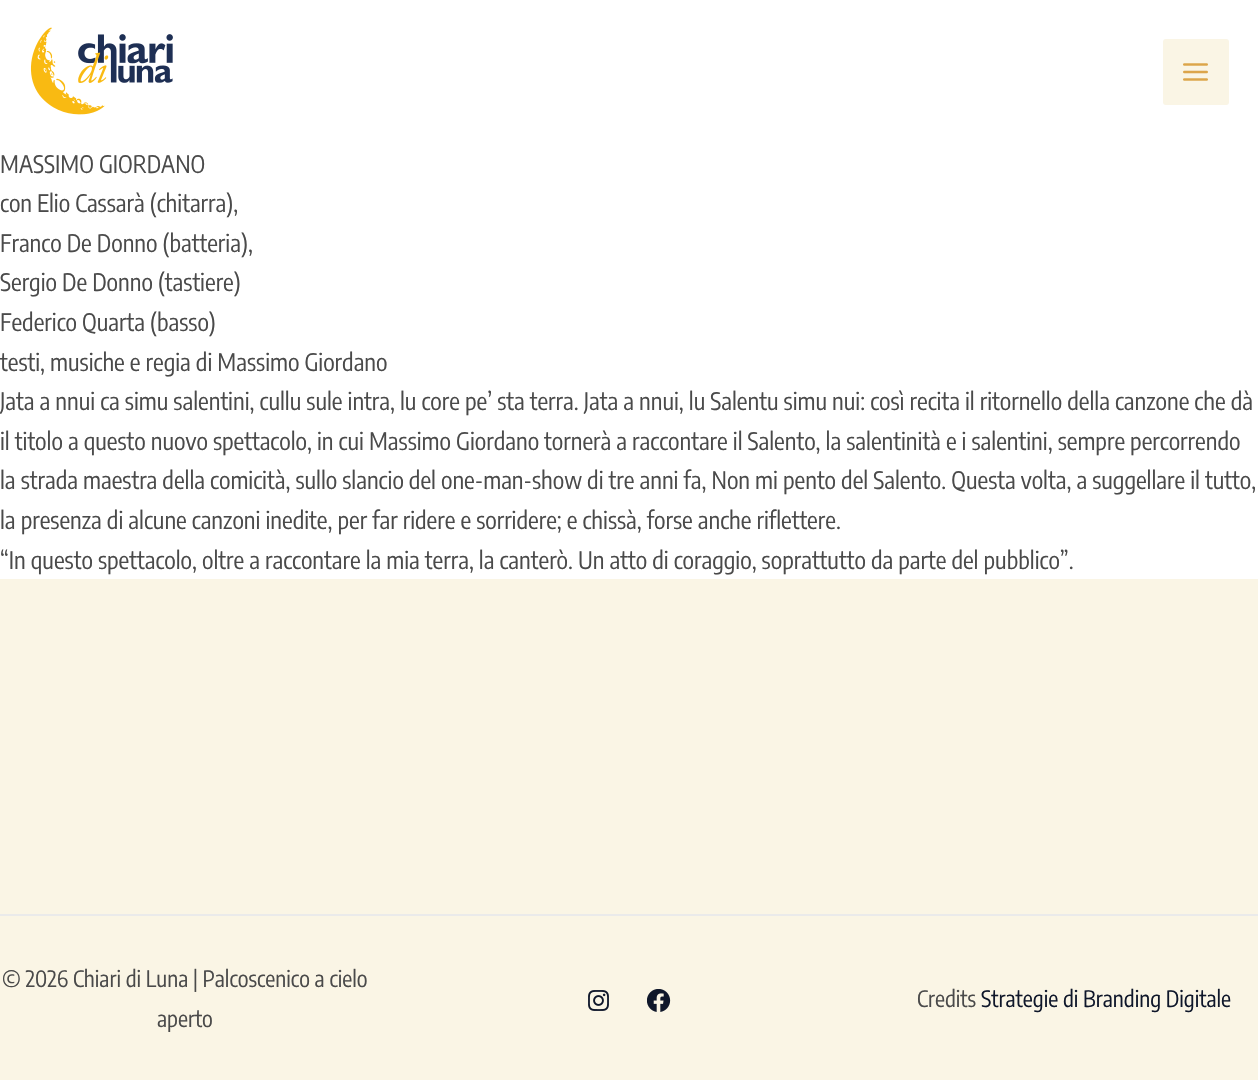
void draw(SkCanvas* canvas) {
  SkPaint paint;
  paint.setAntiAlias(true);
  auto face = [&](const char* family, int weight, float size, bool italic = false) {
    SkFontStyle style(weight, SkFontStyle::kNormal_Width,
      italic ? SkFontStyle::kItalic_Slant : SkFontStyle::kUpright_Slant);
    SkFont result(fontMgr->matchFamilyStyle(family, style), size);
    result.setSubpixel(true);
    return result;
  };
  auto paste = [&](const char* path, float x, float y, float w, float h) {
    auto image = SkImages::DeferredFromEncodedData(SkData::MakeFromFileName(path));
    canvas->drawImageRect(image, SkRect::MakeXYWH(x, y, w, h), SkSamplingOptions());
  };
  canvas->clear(0xffffffff);
  paste("img/1.png", 30, 27, 143, 88);
  paint.setColor(0xfffaf5e5);
  canvas->drawRoundRect(SkRect::MakeXYWH(1163, 39, 66, 66), 3, 3, paint);
  paste("img/2.png", 1183, 63, 25, 18);
  canvas->drawRect(SkRect::MakeXYWH(0, 579, 1258, 501), paint);
  paint.setColor(0xffeaeaea);
  canvas->drawRect(SkRect::MakeXYWH(0, 914, 1258, 2), paint);
  paste("img/3.png", 588, 990, 21, 21);
  paste("img/4.png", 647, 989, 24, 23);
  auto f0 = face("Encode Sans Condensed", 400, 24);
  paint.setColor(0xff4a4a4a);
  {
    const struct { const char* s; float x, y; } items[] = {
      {"MASSIMO GIORDANO", 0, 173},
      {"con Elio Cassarà (chitarra),", 0, 212},
      {"Franco De Donno (batteria),", 0, 252},
      {"Sergio De Donno (tastiere)", 0, 291},
      {"Federico Quarta (basso)", 0, 331},
      {"testi, musiche e regia di Massimo Giordano", 0, 371},
      {"Jata a nnui ca simu salentini, cullu sule intra, lu core pe’ sta terra. Jata a nnui, lu Salentu simu nui: così recita il ritornello della canzone che dà", 0, 410},
      {"il titolo a questo nuovo spettacolo, in cui Massimo Giordano tornerà a raccontare il Salento, la salentinità e i salentini, sempre percorrendo", 0, 450},
      {"la strada maestra della comicità, sullo slancio del one-man-show di tre anni fa, Non mi pento del Salento. Questa volta, a suggellare il tutto,", 0, 489},
      {"la presenza di alcune canzoni inedite, per far ridere e sorridere; e chissà, forse anche riflettere.", 0, 529},
      {"“In questo spettacolo, oltre a raccontare la mia terra, la canterò. Un atto di coraggio, soprattutto da parte del pubblico”.", 0, 569},
    };
    for (auto [s, x, y] : items) {
      canvas->drawString(s, x, y, f0, paint);
    }
  }
  auto f1 = face("Encode Sans Condensed", 400, 22.5f);
  {
    const struct { const char* s; float x, y; } items[] = {
      {"© 2026 Chiari di Luna | Palcoscenico a cielo", 2, 987},
      {"aperto", 157, 1027},
      {"Credits", 917, 1007},
    };
    for (auto [s, x, y] : items) {
      canvas->drawString(s, x, y, f1, paint);
    }
  }
  paint.setColor(0xff0f172a);
  canvas->drawString("Strategie di Branding Digitale", 981, 1007, f1, paint);
}
